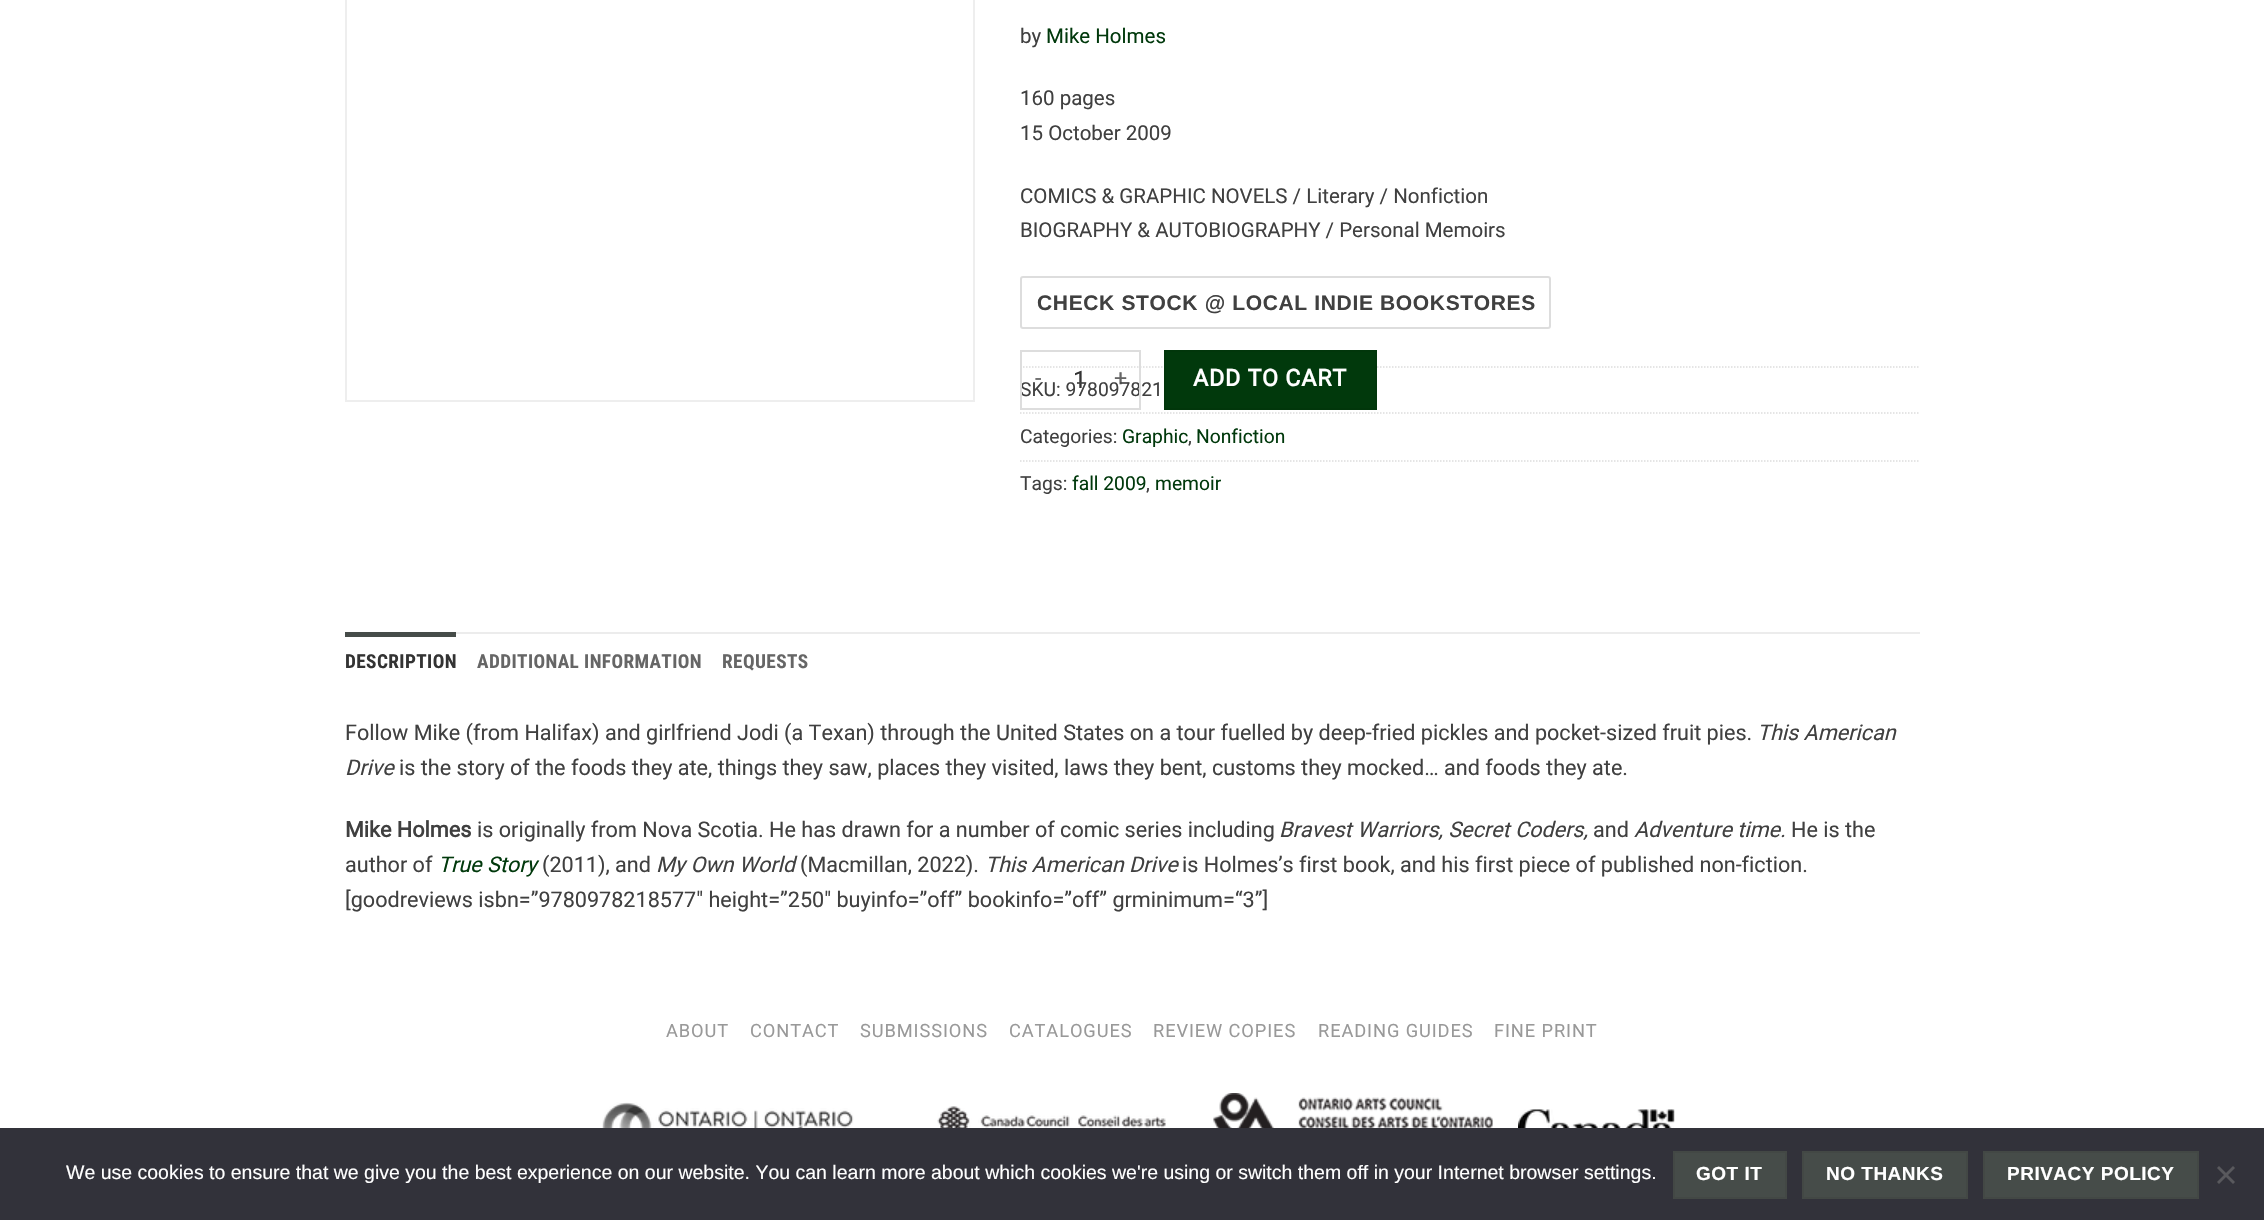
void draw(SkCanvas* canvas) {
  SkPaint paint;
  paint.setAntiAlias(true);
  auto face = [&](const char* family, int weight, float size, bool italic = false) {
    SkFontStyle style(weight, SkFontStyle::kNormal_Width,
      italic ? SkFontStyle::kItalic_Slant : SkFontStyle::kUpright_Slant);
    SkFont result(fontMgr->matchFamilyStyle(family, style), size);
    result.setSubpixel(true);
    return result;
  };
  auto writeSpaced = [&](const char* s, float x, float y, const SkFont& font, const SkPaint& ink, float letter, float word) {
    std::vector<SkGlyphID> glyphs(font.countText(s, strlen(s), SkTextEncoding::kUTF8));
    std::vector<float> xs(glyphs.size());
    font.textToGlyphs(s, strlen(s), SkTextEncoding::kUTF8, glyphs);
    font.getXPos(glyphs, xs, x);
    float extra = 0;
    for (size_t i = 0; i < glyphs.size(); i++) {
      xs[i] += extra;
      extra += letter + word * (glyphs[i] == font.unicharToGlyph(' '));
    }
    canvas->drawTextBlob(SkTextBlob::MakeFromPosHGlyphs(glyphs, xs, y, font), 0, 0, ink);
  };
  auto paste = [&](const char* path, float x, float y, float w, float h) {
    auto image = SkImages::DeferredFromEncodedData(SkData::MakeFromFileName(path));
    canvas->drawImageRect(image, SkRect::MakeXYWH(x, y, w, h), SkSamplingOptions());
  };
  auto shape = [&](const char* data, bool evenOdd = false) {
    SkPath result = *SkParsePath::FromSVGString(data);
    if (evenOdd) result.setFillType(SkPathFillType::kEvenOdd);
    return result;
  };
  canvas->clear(0xffffffff);
  paint.setStroke(true);
  paint.setStrokeWidth(2);
  paint.setColor(0xffeeeeee);
  canvas->drawRect(SkRect::MakeXYWH(346, -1, 628, 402), paint);
  paint.setColor(0xffdddddd);
  canvas->drawRoundRect(SkRect::MakeXYWH(1021, 277, 529, 51), 2, 2, paint);
  paint.setStroke(false);
  canvas->drawRect(SkRect::MakeXYWH(1020, 350, 120, 2), paint);
  canvas->drawRect(SkRect::MakeXYWH(1020, 408, 84, 2), paint);
  paint.setStroke(true);
  paint.setStrokeWidth(1.5f);
  paint.setPathEffect(SkDashPathEffect::Make({{1.5f, 1.5f}}, 0));
  canvas->drawPath(shape("M1020 367H1920"), paint);
  paint.setPathEffect(nullptr);
  paint.setStroke(false);
  paint.setColor(0xff01390c);
  canvas->drawRect(SkRect::MakeXYWH(1165, 351, 211, 58), paint);
  paint.setStroke(true);
  paint.setStrokeWidth(2);
  paint.setColor(0xff01360b);
  canvas->drawRect(SkRect::MakeXYWH(1165, 351, 211, 58), paint);
  paint.setStrokeWidth(1.5f);
  paint.setColor(0xffdddddd);
  paint.setPathEffect(SkDashPathEffect::Make({{1.5f, 1.5f}}, 0));
  canvas->drawPath(shape("M1020 413H1920"), paint);
  paint.setPathEffect(nullptr);
  paint.setPathEffect(SkDashPathEffect::Make({{1.5f, 1.5f}}, 0));
  canvas->drawPath(shape("M1020 461H1920"), paint);
  paint.setPathEffect(nullptr);
  paint.setStroke(false);
  paint.setColor(0xffececec);
  canvas->drawRect(SkRect::MakeXYWH(456, 632, 1464, 2), paint);
  paint.setColor(0xff464c49);
  canvas->drawRect(SkRect::MakeXYWH(345, 632, 111, 5), paint);
  paste("img/1.png", 602, 1102, 252, 26);
  paste("img/2.png", 937, 1106, 229, 22);
  paste("img/3.png", 1213, 1093, 280, 35);
  paste("img/4.png", 1518, 1109, 157, 19);
  paint.setColor(0xff32323a);
  canvas->drawRect(SkRect::MakeXYWH(0, 1128, 2264, 92), paint);
  paint.setColor(0xff464c49);
  canvas->drawRect(SkRect::MakeXYWH(1674, 1152, 112, 46), paint);
  paint.setStroke(true);
  paint.setStrokeWidth(2);
  paint.setColor(0xff434845);
  canvas->drawRect(SkRect::MakeXYWH(1674, 1152, 112, 46), paint);
  paint.setStroke(false);
  paint.setColor(0xff464c49);
  canvas->drawRect(SkRect::MakeXYWH(1803, 1152, 164, 46), paint);
  paint.setStroke(true);
  paint.setColor(0xff434845);
  canvas->drawRect(SkRect::MakeXYWH(1803, 1152, 164, 46), paint);
  paint.setStroke(false);
  paint.setColor(0xff464c49);
  canvas->drawRect(SkRect::MakeXYWH(1984, 1152, 214, 46), paint);
  paint.setStroke(true);
  paint.setColor(0xff434845);
  canvas->drawRect(SkRect::MakeXYWH(1984, 1152, 214, 46), paint);
  paint.setStroke(false);
  paint.setColor(0xff59595d);
  canvas->drawPath(shape("M2233 1166L2235 1168L2219 1184L2217 1182Z"), paint);
  canvas->drawPath(shape("M2217 1168L2219 1166L2235 1182L2233 1184Z"), paint);
  auto f0 = face("Roboto", 400, 20.5f);
  paint.setColor(0xff404040);
  canvas->drawString("by", 1020, 43, f0, paint);
  paint.setColor(0xff01390c);
  canvas->drawString("Mike Holmes", 1046, 43, f0, paint);
  paint.setColor(0xff404040);
  {
    const struct { const char* s; float x, y; } items[] = {
      {"160 pages", 1020, 105},
      {"15 October 2009", 1020, 140},
      {"COMICS & GRAPHIC NOVELS / Literary / Nonfiction", 1020, 203},
      {"BIOGRAPHY & AUTOBIOGRAPHY / Personal Memoirs", 1020, 237},
    };
    for (auto [s, x, y] : items) {
      canvas->drawString(s, x, y, f0, paint);
    }
  }
  auto f1 = face("Liberation Sans", 700, 21);
  writeSpaced("CHECK STOCK @ LOCAL INDIE BOOKSTORES", 1037, 310, f1, paint, 0.65f, 0);
  auto f2 = face("Roboto", 400, 23.25f);
  paint.setColor(0xff666666);
  writeSpaced("-", 1035, 386, f2, paint, 0.75f, 0);
  auto f3 = face("Roboto", 400, 24);
  paint.setColor(0xff333333);
  canvas->drawString("1", 1073, 388, f3, paint);
  paint.setColor(0xff666666);
  writeSpaced("+", 1114, 386, f2, paint, 0.75f, 0);
  auto f4 = face("Roboto", 700, 23.25f);
  paint.setColor(0xffffffff);
  writeSpaced("ADD TO CART", 1193, 386, f4, paint, 0.75f, 0);
  auto f5 = face("Roboto", 400, 19.25f);
  paint.setColor(0xff404040);
  canvas->drawString("SKU: 978097821", 1020, 396, f5, paint);
  {
    const struct { float x, y, w, h; SkColor color; } items[] = {
      {1139, 350, 2, 60, 0xffdddddd},
      {1104, 408, 36, 2, 0xffdddddd},
      {1020, 350, 2, 60, 0xffdddddd},
    };
    for (auto [x, y, w, h, color] : items) {
      paint.setColor(color);
      canvas->drawRect(SkRect::MakeXYWH(x, y, w, h), paint);
    }
  }
  paint.setColor(0xff404040);
  canvas->drawString("Categories:", 1020, 443, f5, paint);
  paint.setColor(0xff01390c);
  canvas->drawString("Graphic", 1122, 443, f5, paint);
  paint.setColor(0xff404040);
  canvas->drawString(",", 1188, 443, f5, paint);
  paint.setColor(0xff01390c);
  canvas->drawString("Nonfiction", 1196, 443, f5, paint);
  paint.setColor(0xff404040);
  canvas->drawString("Tags:", 1020, 490, f5, paint);
  paint.setColor(0xff01390c);
  canvas->drawString("fall 2009", 1072, 490, f5, paint);
  paint.setColor(0xff404040);
  canvas->drawString(",", 1146, 490, f5, paint);
  paint.setColor(0xff01390c);
  canvas->drawString("memoir", 1155, 490, f5, paint);
  auto f6 = face("Roboto Condensed", 700, 19.25f);
  paint.setColor(0xff333333);
  writeSpaced("DESCRIPTION", 345, 668, f6, paint, 0.4f, 0);
  paint.setColor(0xff666666);
  writeSpaced("ADDITIONAL INFORMATION", 477, 668, f6, paint, 0.4f, 0);
  writeSpaced("REQUESTS", 722, 668, f6, paint, 0.4f, 0);
  auto f7 = face("Roboto", 400, 21.6f);
  paint.setColor(0xff404040);
  canvas->drawString("Follow Mike (from Halifax) and girlfriend Jodi (a Texan) through the United States on a tour fuelled by deep-fried pickles and pocket-sized fruit pies.", 345, 740, f7, paint);
  auto f8 = face("Roboto", 400, 21.6f, true);
  canvas->drawString("This American", 1757, 740, f8, paint);
  canvas->drawString("Drive", 345, 775, f8, paint);
  canvas->drawString("is the story of the foods they ate, things they saw, places they visited, laws they bent, customs they mocked… and foods they ate.", 399, 775, f7, paint);
  auto f9 = face("Roboto", 700, 21.6f);
  canvas->drawString("Mike Holmes", 345, 837, f9, paint);
  canvas->drawString("is originally from Nova Scotia. He has drawn for a number of comic series including", 477, 837, f7, paint);
  canvas->drawString("Bravest Warriors, Secret Coders,", 1279, 837, f8, paint);
  canvas->drawString("and", 1593, 837, f7, paint);
  canvas->drawString("Adventure time.", 1634, 837, f8, paint);
  canvas->drawString("He is the", 1791, 837, f7, paint);
  canvas->drawString("author of", 345, 872, f7, paint);
  paint.setColor(0xff01390c);
  canvas->drawString("True Story", 438, 872, f8, paint);
  paint.setColor(0xff404040);
  canvas->drawString("(2011), and", 542, 872, f7, paint);
  canvas->drawString("My Own World", 656, 872, f8, paint);
  canvas->drawString("(Macmillan, 2022).", 800, 872, f7, paint);
  canvas->drawString("This American Drive", 985, 872, f8, paint);
  canvas->drawString("is Holmes’s first book, and his first piece of published non-fiction.", 1182, 872, f7, paint);
  canvas->drawString("[goodreviews isbn=”9780978218577″ height=”250″ buyinfo=”off” bookinfo=”off” grminimum=“3”]", 345, 907, f7, paint);
  auto f10 = face("Roboto", 400, 18.25f);
  paint.setColor(0xff999999);
  {
    const struct { const char* s; float x, y; } items[] = {
      {"ABOUT", 666, 1037},
      {"CONTACT", 750, 1037},
      {"SUBMISSIONS", 860, 1037},
      {"CATALOGUES", 1009, 1037},
      {"REVIEW COPIES", 1153, 1037},
      {"READING GUIDES", 1318, 1037},
      {"FINE PRINT", 1494, 1037},
    };
    for (auto [s, x, y] : items) {
      writeSpaced(s, x, y, f10, paint, 0.9f, 0);
    }
  }
  auto f11 = face("Liberation Sans", 400, 19.5f);
  paint.setColor(0xffffffff);
  canvas->drawString("We use cookies to ensure that we give you the best experience on our website. You can learn more about which cookies we're using or switch them off in your Internet browser settings.", 66, 1179, f11, paint);
  auto f12 = face("Liberation Sans", 700, 19);
  {
    const struct { const char* s; float x, y; } items[] = {
      {"GOT IT", 1696, 1180},
      {"NO THANKS", 1826, 1180},
      {"PRIVACY POLICY", 2007, 1180},
    };
    for (auto [s, x, y] : items) {
      writeSpaced(s, x, y, f12, paint, 0.5f, 0);
    }
  }
}
